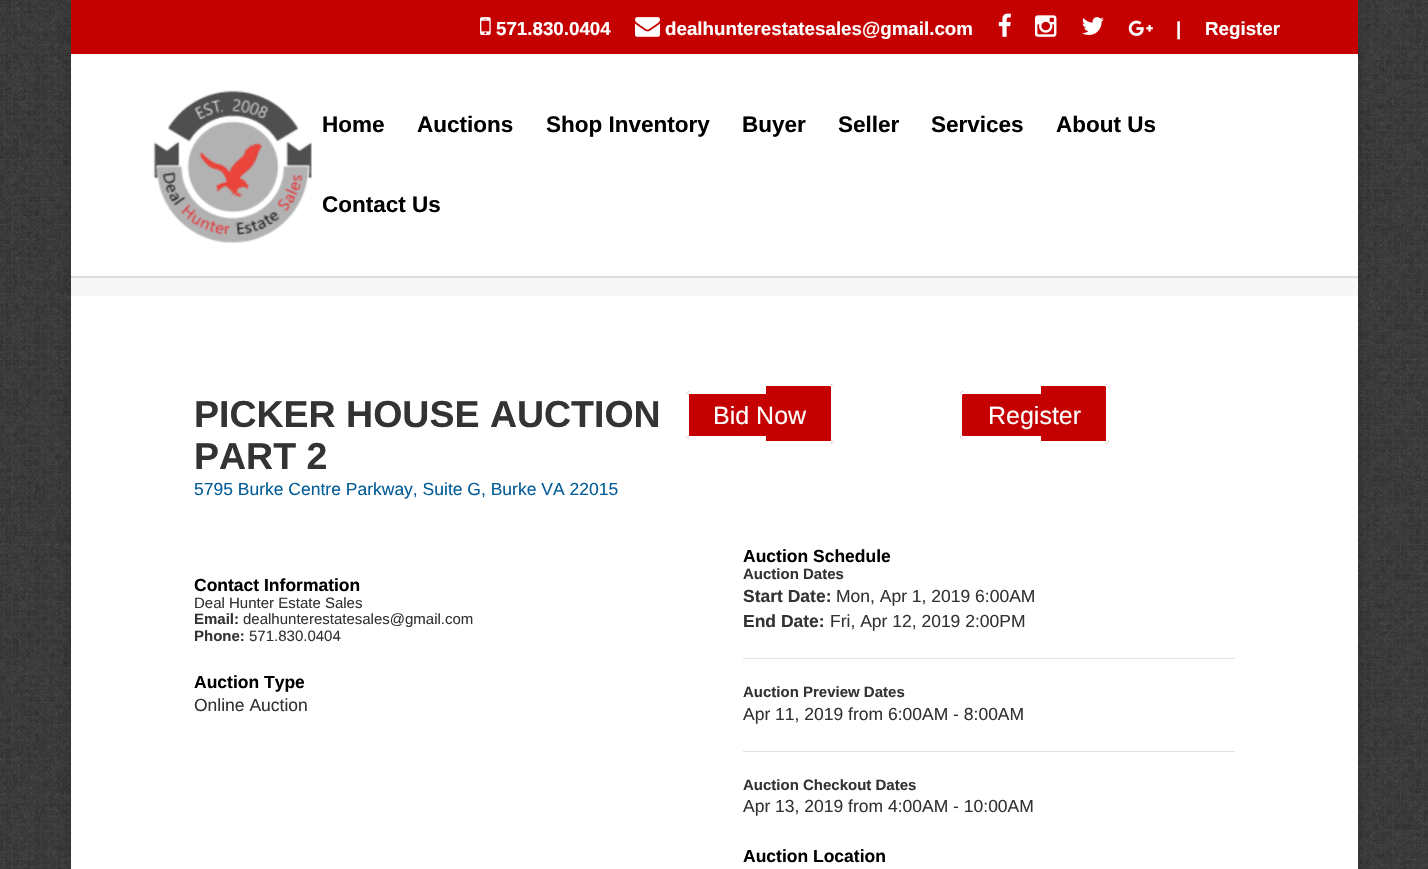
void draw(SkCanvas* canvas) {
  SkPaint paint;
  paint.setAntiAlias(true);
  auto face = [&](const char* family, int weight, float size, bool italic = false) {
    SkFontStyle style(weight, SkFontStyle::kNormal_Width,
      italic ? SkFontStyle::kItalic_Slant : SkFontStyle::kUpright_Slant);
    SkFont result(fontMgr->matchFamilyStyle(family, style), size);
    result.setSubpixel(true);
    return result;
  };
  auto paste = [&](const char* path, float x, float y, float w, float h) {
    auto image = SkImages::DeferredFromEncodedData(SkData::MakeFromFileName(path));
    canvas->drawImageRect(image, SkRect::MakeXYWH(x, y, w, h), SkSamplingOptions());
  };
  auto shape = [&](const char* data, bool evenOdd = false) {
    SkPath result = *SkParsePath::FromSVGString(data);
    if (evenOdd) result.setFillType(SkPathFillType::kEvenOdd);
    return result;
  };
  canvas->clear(0xffffffff);
  paste("img/1.png", 0, 0, 1428, 869);
  paint.setColor(0x33000000);
  paint.setMaskFilter(SkMaskFilter::MakeBlur(kNormal_SkBlurStyle, 6));
  canvas->drawRect(SkRect::MakeXYWH(71, 0, 1287, 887), paint);
  paint.setMaskFilter(nullptr);
  paint.setColor(0xffc50000);
  canvas->drawRect(SkRect::MakeXYWH(71, 0, 1287, 54), paint);
  paste("img/2.png", 480, 17, 11, 18);
  paste("img/3.png", 635, 17, 25, 20);
  paste("img/4.png", 998, 13, 13, 24);
  paste("img/5.png", 1035, 15, 22, 22);
  paste("img/6.png", 1082, 17, 22, 18);
  paste("img/7.png", 1128, 20, 25, 16);
  paint.setColor(0xffdedede);
  canvas->drawPath(shape("M71 55V278H1358V55V276H71Z"), paint);
  paint.setColor(0xffffffff);
  canvas->drawRect(SkRect::MakeXYWH(71, 54, 1287, 222), paint);
  paste("img/8.png", 153, 90, 159, 153);
  paint.setColor(0xfff7f7f7);
  canvas->drawRect(SkRect::MakeXYWH(71, 278, 1287, 18), paint);
  paint.setColor(0xffffffff);
  canvas->drawRect(SkRect::MakeXYWH(71, 296, 1287, 573), paint);
  paint.setColor(0xffc50000);
  canvas->drawPath(shape("M690 391H806V439H690C688 439 686 437 686 435V395C686 393 688 391 690 391Z"), paint);
  paint.setColor(0xffffffff);
  canvas->drawPath(shape("M690 391H806V439H690C688 439 686 437 686 435V395C686 393 688 391 690 391ZM690 394H806V436H690C689 436 689 436 689 435V395C689 394 689 394 690 394Z", true), paint);
  paint.setColor(0xffc50000);
  canvas->drawPath(shape("M766 384H830C832 384 834 386 834 388V440C834 442 832 444 830 444H766Z"), paint);
  paint.setColor(0xffffffff);
  canvas->drawPath(shape("M766 384H830C832 384 834 385 834 388V440C834 442 832 444 830 444H766ZM766 386H830C831 386 831 387 831 388V440C831 441 831 441 830 441H766Z", true), paint);
  paint.setColor(0xffc50000);
  canvas->drawPath(shape("M964 391H1081V439H964C962 439 960 437 960 435V395C960 393 962 391 964 391Z"), paint);
  paint.setColor(0xffffffff);
  canvas->drawPath(shape("M964 391H1081V439H964C962 439 960 437 960 435V395C960 393 962 391 964 391ZM964 394H1081V436H964C963 436 962 436 962 435V395C962 394 963 394 964 394Z", true), paint);
  paint.setColor(0xffc50000);
  canvas->drawPath(shape("M1041 384H1105C1107 384 1109 386 1109 388V440C1109 442 1107 444 1105 444H1041Z"), paint);
  paint.setColor(0xffffffff);
  canvas->drawPath(shape("M1041 384H1105C1107 384 1109 385 1109 388V440C1109 442 1107 444 1105 444H1041ZM1041 386H1105C1106 386 1106 387 1106 388V440C1106 441 1106 441 1105 441H1041Z", true), paint);
  paint.setColor(0xffe2e2e2);
  canvas->drawRect(SkRect::MakeXYWH(743, 658, 492, 1), paint);
  canvas->drawRect(SkRect::MakeXYWH(743, 751, 492, 1), paint);
  auto f0 = face("Liberation Sans", 700, 18.75f);
  paint.setColor(0xffffffff);
  {
    const struct { const char* s; float x, y; } items[] = {
      {"571.830.0404", 496, 35},
      {"dealhunterestatesales@gmail.com", 665, 35},
      {"|", 1176, 35},
      {"Register", 1205, 35},
    };
    for (auto [s, x, y] : items) {
      canvas->drawString(s, x, y, f0, paint);
    }
  }
  auto f1 = face("Liberation Sans", 700, 22.5f);
  paint.setColor(0xff000000);
  {
    const struct { const char* s; float x, y; } items[] = {
      {"Home", 322, 132},
      {"Auctions", 417, 132},
      {"Shop Inventory", 546, 132},
      {"Buyer", 742, 132},
      {"Seller", 838, 132},
      {"Services", 931, 132},
      {"About Us", 1056, 132},
      {"Contact Us", 322, 212},
    };
    for (auto [s, x, y] : items) {
      canvas->drawString(s, x, y, f1, paint);
    }
  }
  auto f2 = face("Liberation Sans", 700, 37.5f);
  paint.setColor(0xff333333);
  canvas->drawString("PICKER HOUSE AUCTION", 194, 427, f2, paint);
  canvas->drawString("PART 2", 194, 469, f2, paint);
  auto f3 = face("Liberation Sans", 400, 17.5f);
  paint.setColor(0xff035d98);
  canvas->drawString("5795 Burke Centre Parkway, Suite G, Burke VA 22015", 194, 495, f3, paint);
  auto f4 = face("Liberation Sans", 400, 25);
  paint.setColor(0xffffffff);
  canvas->drawString("Bid Now", 713, 424, f4, paint);
  canvas->drawString("Register", 988, 424, f4, paint);
  auto f5 = face("Liberation Sans", 700, 17.5f);
  paint.setColor(0xff000000);
  canvas->drawString("Contact Information", 194, 591, f5, paint);
  auto f6 = face("Liberation Sans", 400, 15);
  paint.setColor(0xff333333);
  canvas->drawString("Deal Hunter Estate Sales", 194, 608, f6, paint);
  auto f7 = face("Liberation Sans", 700, 15);
  canvas->drawString("Email:", 194, 624, f7, paint);
  canvas->drawString("dealhunterestatesales@gmail.com", 243, 624, f6, paint);
  canvas->drawString("Phone:", 194, 641, f7, paint);
  canvas->drawString("571.830.0404", 249, 641, f6, paint);
  paint.setColor(0xff000000);
  canvas->drawString("Auction Type", 194, 688, f5, paint);
  paint.setColor(0xff333333);
  canvas->drawString("Online Auction", 194, 711, f3, paint);
  paint.setColor(0xff000000);
  canvas->drawString("Auction Schedule", 743, 562, f5, paint);
  paint.setColor(0xff333333);
  canvas->drawString("Auction Dates", 743, 579, f7, paint);
  canvas->drawString("Start Date:", 743, 602, f5, paint);
  canvas->drawString("Mon, Apr 1, 2019 6:00AM", 836, 602, f3, paint);
  canvas->drawString("End Date:", 743, 627, f5, paint);
  canvas->drawString("Fri, Apr 12, 2019 2:00PM", 830, 627, f3, paint);
  canvas->drawString("Auction Preview Dates", 743, 697, f7, paint);
  canvas->drawString("Apr 11, 2019 from 6:00AM - 8:00AM", 743, 720, f3, paint);
  canvas->drawString("Auction Checkout Dates", 743, 790, f7, paint);
  canvas->drawString("Apr 13, 2019 from 4:00AM - 10:00AM", 743, 812, f3, paint);
  paint.setColor(0xff000000);
  canvas->drawString("Auction Location", 743, 862, f5, paint);
}
